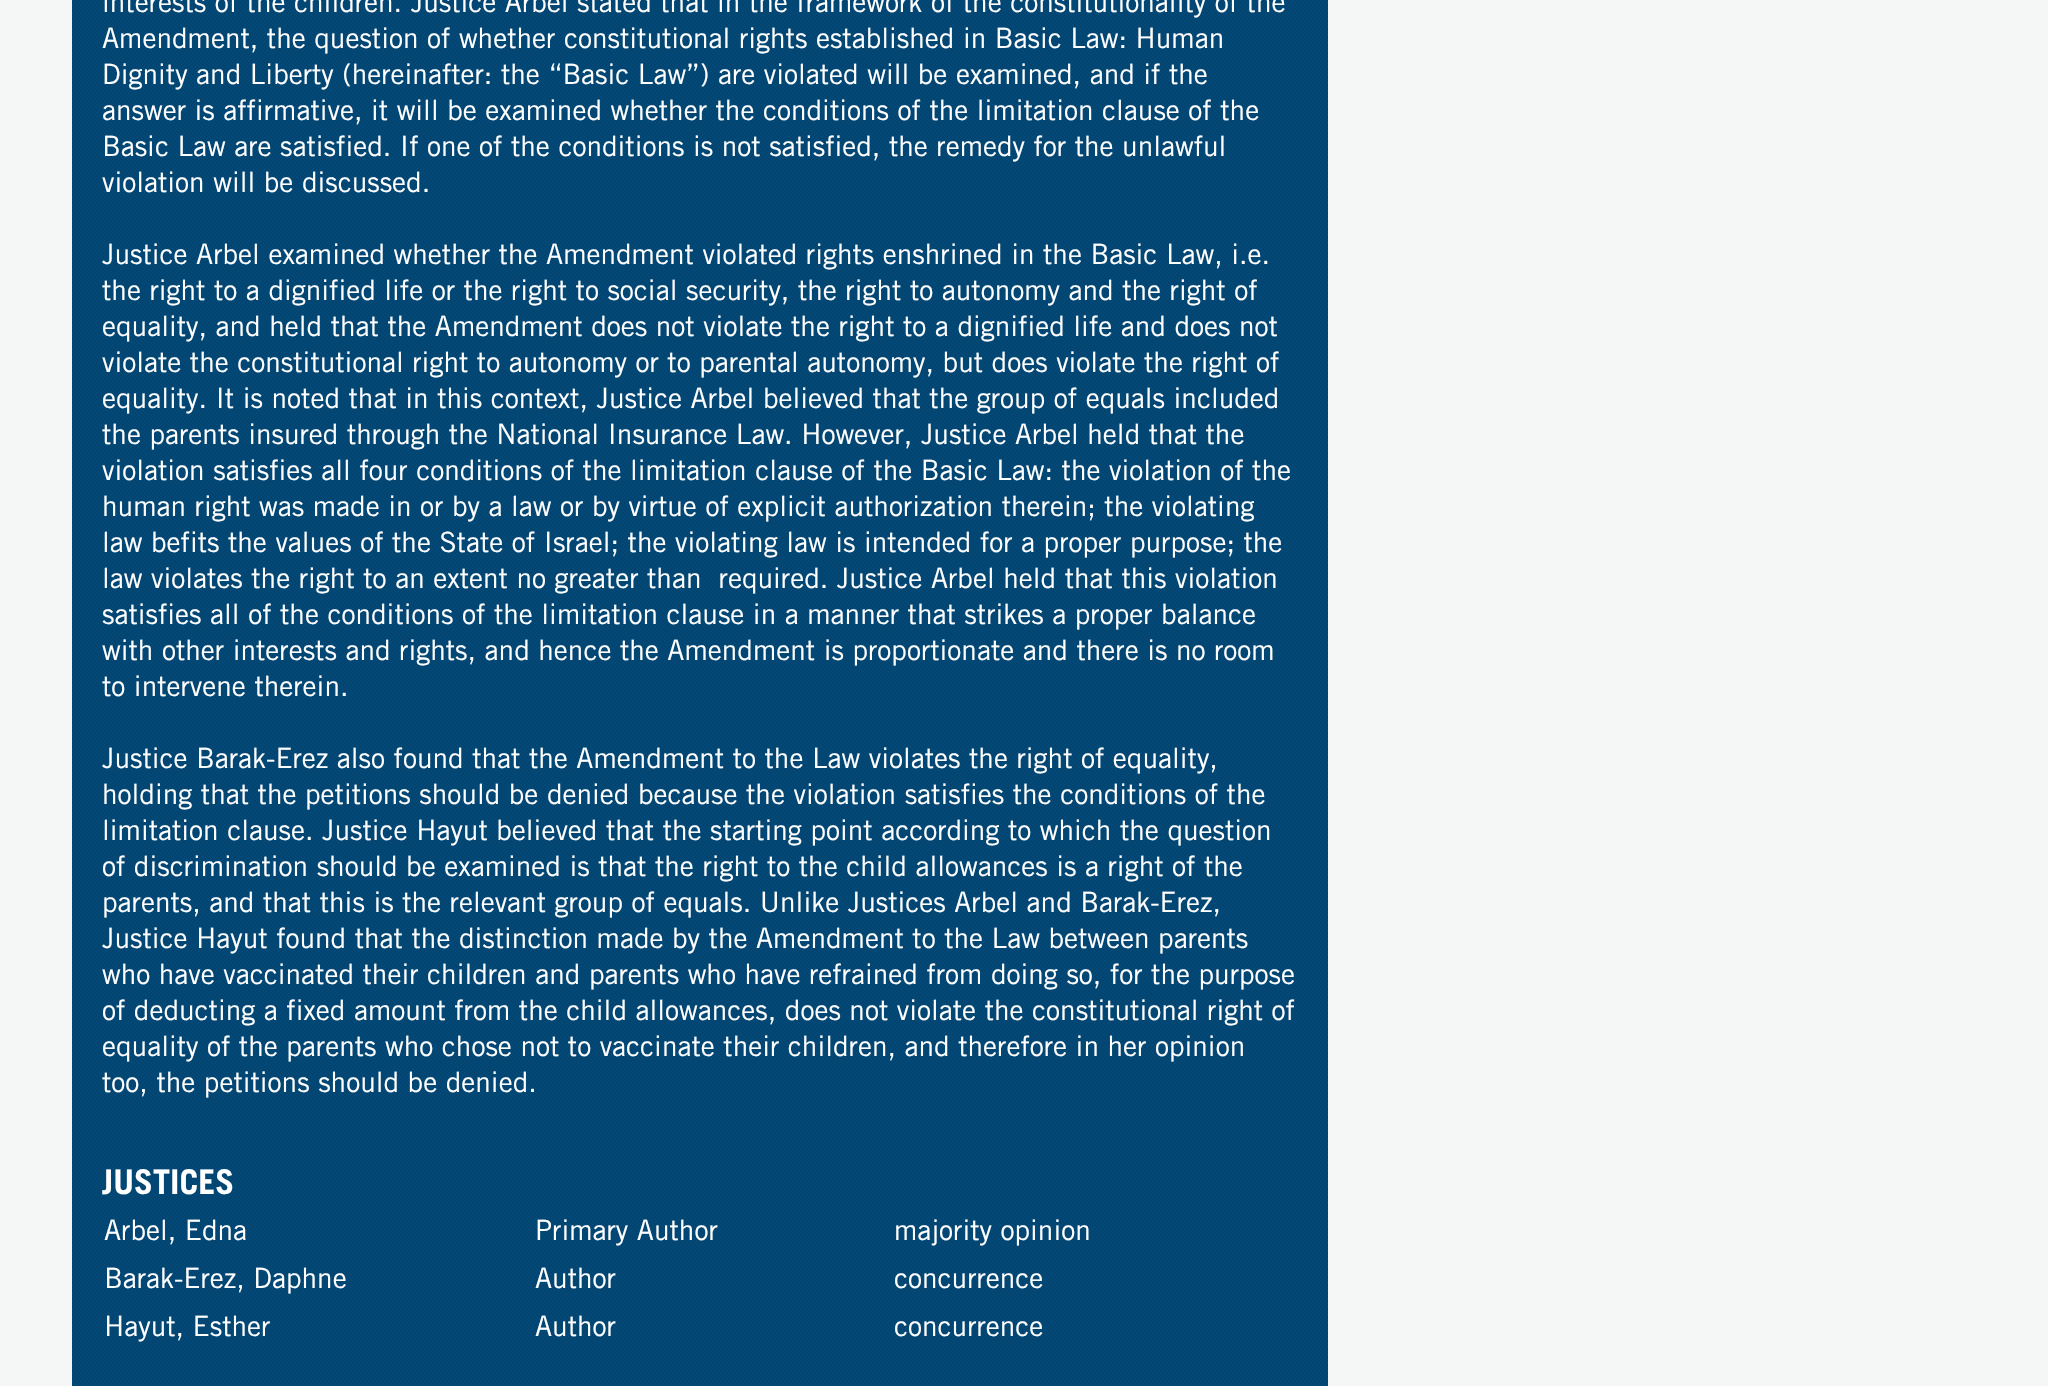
void draw(SkCanvas* canvas) {
  SkPaint paint;
  paint.setAntiAlias(true);
  auto face = [&](const char* family, int weight, float size, bool italic = false) {
    SkFontStyle style(weight, SkFontStyle::kNormal_Width,
      italic ? SkFontStyle::kItalic_Slant : SkFontStyle::kUpright_Slant);
    SkFont result(fontMgr->matchFamilyStyle(family, style), size);
    result.setSubpixel(true);
    return result;
  };
  auto paste = [&](const char* path, float x, float y, float w, float h) {
    auto image = SkImages::DeferredFromEncodedData(SkData::MakeFromFileName(path));
    canvas->drawImageRect(image, SkRect::MakeXYWH(x, y, w, h), SkSamplingOptions());
  };
  canvas->clear(0xfff5f7f7);
  paste("img/1.png", 72, 0, 1256, 1386);
  auto f0 = face("Trade Gothic", 400, 28);
  paint.setColor(0xffffffff);
  {
    const struct { const char* s; float x, y; } items[] = {
      {"interests of the children. Justice Arbel stated that in the framework of the constitutionality of the", 102, 12},
      {"Amendment, the question of whether constitutional rights established in Basic Law: Human", 102, 48},
      {"Dignity and Liberty (hereinafter: the “Basic Law”) are violated will be examined, and if the", 102, 84},
      {"answer is affirmative, it will be examined whether the conditions of the limitation clause of the", 102, 120},
      {"Basic Law are satisfied. If one of the conditions is not satisfied, the remedy for the unlawful", 102, 156},
      {"violation will be discussed.", 102, 192},
      {"Justice Arbel examined whether the Amendment violated rights enshrined in the Basic Law, i.e.", 102, 264},
      {"the right to a dignified life or the right to social security, the right to autonomy and the right of", 102, 300},
      {"equality, and held that the Amendment does not violate the right to a dignified life and does not", 102, 336},
      {"violate the constitutional right to autonomy or to parental autonomy, but does violate the right of", 102, 372},
      {"equality. It is noted that in this context, Justice Arbel believed that the group of equals included", 102, 408},
      {"the parents insured through the National Insurance Law. However, Justice Arbel held that the", 102, 444},
      {"violation satisfies all four conditions of the limitation clause of the Basic Law: the violation of the", 102, 480},
      {"human right was made in or by a law or by virtue of explicit authorization therein; the violating", 102, 516},
      {"law befits the values of the State of Israel; the violating law is intended for a proper purpose; the", 102, 552},
      {"law violates the right to an extent no greater than  required. Justice Arbel held that this violation", 102, 588},
      {"satisfies all of the conditions of the limitation clause in a manner that strikes a proper balance", 102, 624},
      {"with other interests and rights, and hence the Amendment is proportionate and there is no room", 102, 660},
      {"to intervene therein.", 102, 696},
      {"Justice Barak-Erez also found that the Amendment to the Law violates the right of equality,", 102, 768},
      {"holding that the petitions should be denied because the violation satisfies the conditions of the", 102, 804},
      {"limitation clause. Justice Hayut believed that the starting point according to which the question", 102, 840},
      {"of discrimination should be examined is that the right to the child allowances is a right of the", 102, 876},
      {"parents, and that this is the relevant group of equals. Unlike Justices Arbel and Barak-Erez,", 102, 912},
      {"Justice Hayut found that the distinction made by the Amendment to the Law between parents", 102, 948},
      {"who have vaccinated their children and parents who have refrained from doing so, for the purpose", 102, 984},
      {"of deducting a fixed amount from the child allowances, does not violate the constitutional right of", 102, 1020},
      {"equality of the parents who chose not to vaccinate their children, and therefore in her opinion", 102, 1056},
      {"too, the petitions should be denied.", 102, 1092},
    };
    for (auto [s, x, y] : items) {
      canvas->drawString(s, x, y, f0, paint);
    }
  }
  auto f1 = face("Trade Gothic", 700, 34);
  canvas->drawString("JUSTICES", 102, 1194, f1, paint);
  {
    const struct { const char* s; float x, y; } items[] = {
      {"Arbel, Edna", 104, 1240},
      {"Primary Author", 535, 1240},
      {"majority opinion", 894, 1240},
      {"Barak-Erez, Daphne", 104, 1288},
      {"Author", 535, 1288},
      {"concurrence", 894, 1288},
      {"Hayut, Esther", 104, 1336},
      {"Author", 535, 1336},
      {"concurrence", 894, 1336},
    };
    for (auto [s, x, y] : items) {
      canvas->drawString(s, x, y, f0, paint);
    }
  }
}
